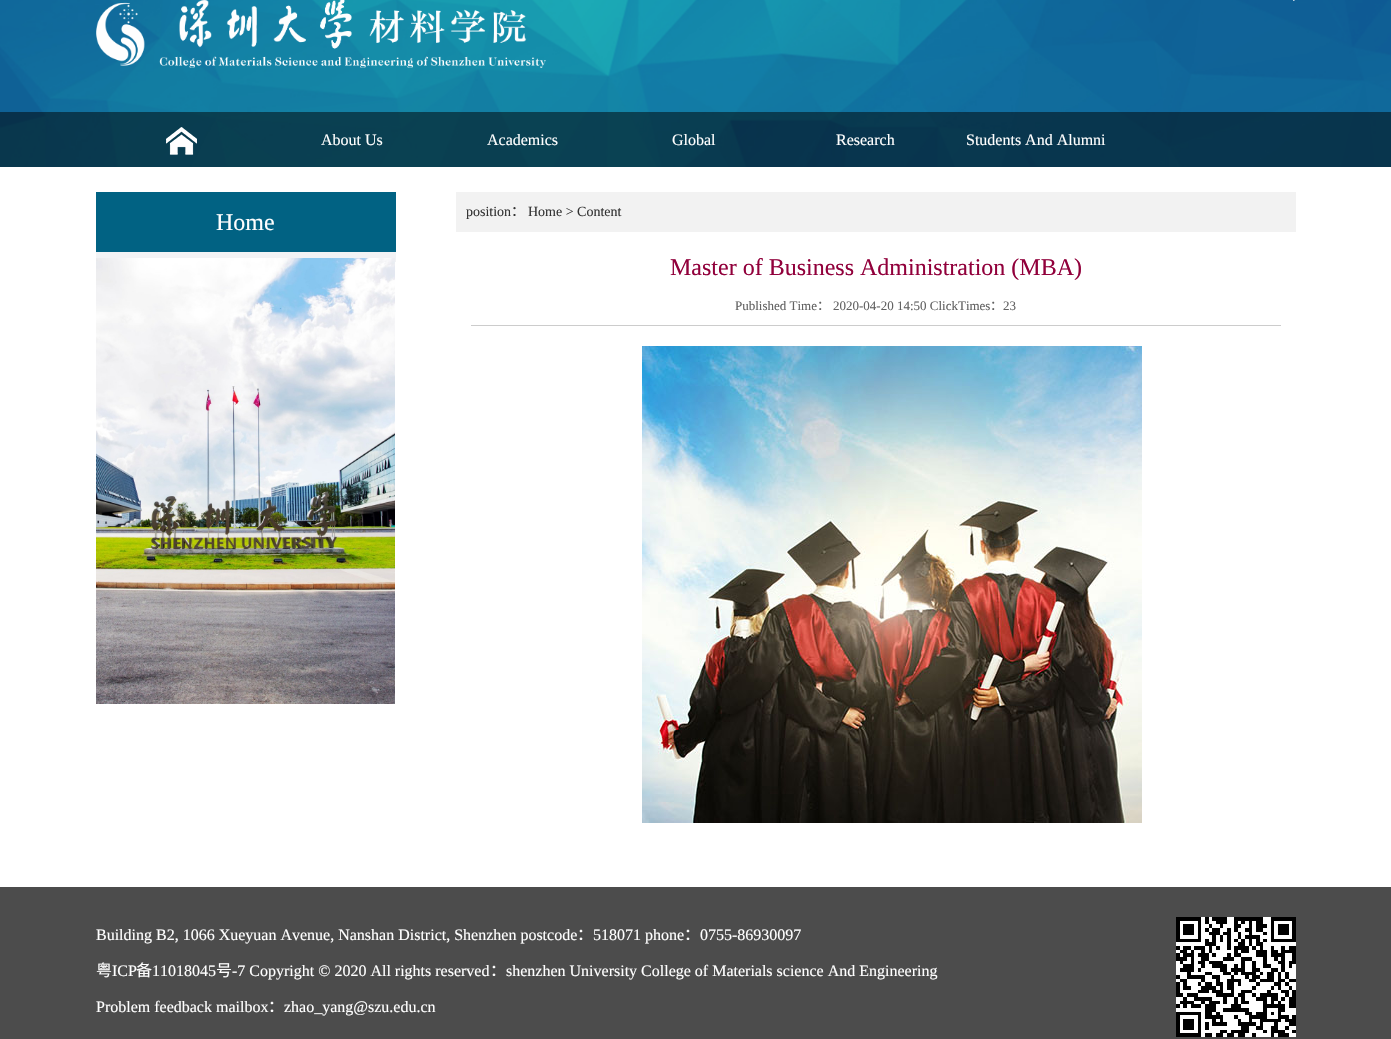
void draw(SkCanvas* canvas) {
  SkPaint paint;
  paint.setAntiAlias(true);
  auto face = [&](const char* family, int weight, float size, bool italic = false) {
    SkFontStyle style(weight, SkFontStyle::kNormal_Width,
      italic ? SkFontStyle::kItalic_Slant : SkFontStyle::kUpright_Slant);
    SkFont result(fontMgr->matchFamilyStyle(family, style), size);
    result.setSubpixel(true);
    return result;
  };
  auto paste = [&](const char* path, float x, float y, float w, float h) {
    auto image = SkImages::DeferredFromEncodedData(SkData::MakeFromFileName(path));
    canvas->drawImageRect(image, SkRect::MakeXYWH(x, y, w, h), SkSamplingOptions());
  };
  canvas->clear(0xffffffff);
  paste("img/1.png", 0, 0, 1391, 167);
  paste("img/2.png", 96, 0, 450, 68);
  paste("img/3.png", 1293, 0, 2, 1);
  paint.setColor(0x80000000);
  canvas->drawRect(SkRect::MakeXYWH(0, 112, 1391, 55), paint);
  paste("img/4.png", 166, 127, 31, 28);
  paint.setColor(0xff016283);
  canvas->drawRect(SkRect::MakeXYWH(96, 192, 300, 60), paint);
  paint.setColor(0xfff2f3f5);
  canvas->drawRect(SkRect::MakeXYWH(96, 252, 300, 10), paint);
  paste("img/5.png", 96, 258, 299, 446);
  paint.setColor(0xfff2f2f2);
  canvas->drawRect(SkRect::MakeXYWH(456, 192, 840, 40), paint);
  paint.setColor(0xffcccccc);
  canvas->drawRect(SkRect::MakeXYWH(471, 325, 810, 1), paint);
  paste("img/6.png", 642, 346, 500, 477);
  paint.setColor(0xff4c4c4c);
  canvas->drawRect(SkRect::MakeXYWH(0, 887, 1391, 152), paint);
  paste("img/7.png", 1176, 917, 120, 120);
  auto f0 = face("Liberation Serif", 400, 16);
  paint.setColor(0xffffffff);
  {
    const struct { const char* s; float x, y; } items[] = {
      {"About Us", 321, 145},
      {"Academics", 487, 145},
      {"Global", 672, 145},
      {"Research", 836, 145},
      {"Students And Alumni", 966, 145},
    };
    for (auto [s, x, y] : items) {
      canvas->drawString(s, x, y, f0, paint);
    }
  }
  auto f1 = face("Liberation Serif", 400, 24);
  canvas->drawString("Home", 216, 230, f1, paint);
  auto f2 = face("Liberation Serif", 400, 14);
  paint.setColor(0xff333333);
  canvas->drawString("position", 466, 216, f2, paint);
  auto f3 = face("Noto Sans CJK SC", 400, 14);
  canvas->drawString("：", 511, 216, f3, paint);
  canvas->drawString("Home > Content", 528, 216, f2, paint);
  paint.setColor(0xff91003b);
  canvas->drawString("Master of Business Administration (MBA)", 670, 275, f1, paint);
  auto f4 = face("Liberation Serif", 400, 13);
  paint.setColor(0xff616161);
  canvas->drawString("Published Time", 735, 310, f4, paint);
  auto f5 = face("Noto Sans CJK SC", 400, 13);
  canvas->drawString("：", 817, 310, f5, paint);
  canvas->drawString("2020-04-20 14:50 ClickTimes", 833, 310, f4, paint);
  canvas->drawString("：", 990, 310, f5, paint);
  canvas->drawString("23", 1003, 310, f4, paint);
  paint.setColor(0xffffffff);
  canvas->drawString("Building B2, 1066 Xueyuan Avenue, Nanshan District, Shenzhen postcode", 96, 940, f0, paint);
  auto f6 = face("Noto Sans CJK SC", 400, 16);
  canvas->drawString("：", 577, 940, f6, paint);
  canvas->drawString("518071 phone", 593, 940, f0, paint);
  canvas->drawString("：", 684, 940, f6, paint);
  canvas->drawString("0755-86930097", 700, 940, f0, paint);
  canvas->drawString("粤", 96, 976, f6, paint);
  canvas->drawString("ICP", 112, 976, f0, paint);
  canvas->drawString("备", 136, 976, f6, paint);
  canvas->drawString("11018045", 152, 976, f0, paint);
  canvas->drawString("号", 216, 976, f6, paint);
  canvas->drawString("-7 Copyright © 2020 All rights reserved", 232, 976, f0, paint);
  canvas->drawString("：", 490, 976, f6, paint);
  canvas->drawString("shenzhen University College of Materials science And Engineering", 506, 976, f0, paint);
  canvas->drawString("Problem feedback mailbox", 96, 1012, f0, paint);
  canvas->drawString("：", 268, 1012, f6, paint);
  canvas->drawString("zhao_yang@szu.edu.cn", 284, 1012, f0, paint);
}
